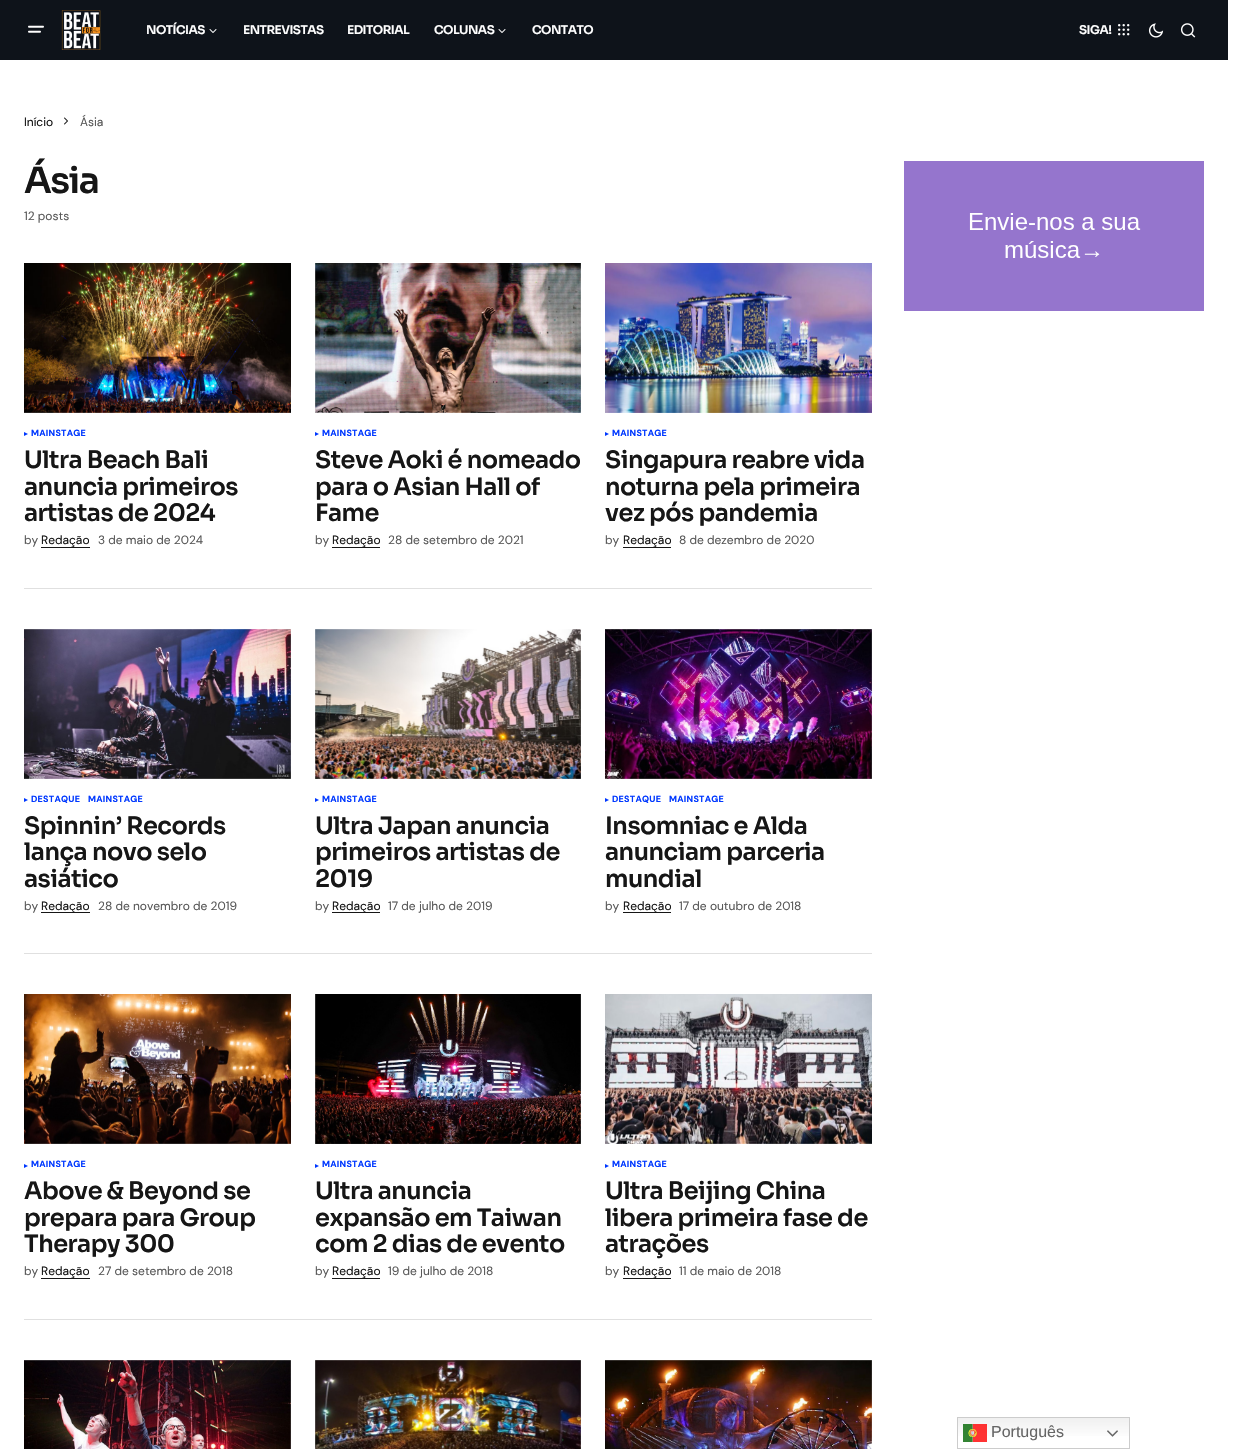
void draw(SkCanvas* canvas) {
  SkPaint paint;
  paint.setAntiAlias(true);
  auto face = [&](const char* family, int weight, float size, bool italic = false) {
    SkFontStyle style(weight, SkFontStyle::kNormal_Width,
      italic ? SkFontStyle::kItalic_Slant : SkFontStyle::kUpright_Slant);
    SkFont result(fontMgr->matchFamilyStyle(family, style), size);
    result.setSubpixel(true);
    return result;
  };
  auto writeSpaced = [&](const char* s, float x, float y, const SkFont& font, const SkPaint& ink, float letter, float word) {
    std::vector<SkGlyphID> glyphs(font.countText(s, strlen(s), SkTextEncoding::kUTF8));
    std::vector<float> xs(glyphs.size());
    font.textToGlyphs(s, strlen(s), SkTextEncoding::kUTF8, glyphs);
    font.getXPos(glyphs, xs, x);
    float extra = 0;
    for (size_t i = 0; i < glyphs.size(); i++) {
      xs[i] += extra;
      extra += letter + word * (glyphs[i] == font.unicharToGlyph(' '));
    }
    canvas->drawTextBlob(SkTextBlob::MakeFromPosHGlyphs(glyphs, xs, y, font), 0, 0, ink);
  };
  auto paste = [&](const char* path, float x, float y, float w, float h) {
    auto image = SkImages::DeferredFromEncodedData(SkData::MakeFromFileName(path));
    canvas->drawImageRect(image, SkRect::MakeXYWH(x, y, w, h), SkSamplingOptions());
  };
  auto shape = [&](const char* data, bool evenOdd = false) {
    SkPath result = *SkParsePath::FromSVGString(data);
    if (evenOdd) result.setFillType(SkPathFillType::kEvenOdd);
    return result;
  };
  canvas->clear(0xffffffff);
  paint.setColor(0xff0e131a);
  canvas->drawRect(SkRect::MakeXYWH(0, 0, 1228, 60), paint);
  paste("img/1.png", 28, 25, 16, 8);
  paste("img/2.png", 61, 10, 40, 40);
  paste("img/3.png", 209, 29, 8, 4);
  paste("img/3.png", 498, 29, 8, 4);
  paste("img/4.png", 1118, 24, 12, 12);
  paste("img/5.png", 1148, 23, 16, 15);
  paste("img/6.png", 1180, 23, 16, 15);
  paste("img/7.png", 64, 117, 4, 8);
  paste("img/8.png", 24, 263, 267, 150);
  paint.setColor(0xff0038ff);
  canvas->drawPath(shape("M28 434L24 436V432Z"), paint);
  paint.setColor(0xff161616);
  canvas->drawRect(SkRect::MakeXYWH(41, 547, 49, 1), paint);
  paste("img/9.png", 315, 263, 266, 150);
  paint.setColor(0xff0038ff);
  canvas->drawPath(shape("M319 434L315 436V432Z"), paint);
  paint.setColor(0xff161616);
  canvas->drawRect(SkRect::MakeXYWH(332, 547, 48, 1), paint);
  paste("img/10.png", 605, 263, 267, 150);
  paint.setColor(0xff0038ff);
  canvas->drawPath(shape("M609 434L605 436V432Z"), paint);
  paint.setColor(0xff161616);
  canvas->drawRect(SkRect::MakeXYWH(623, 547, 48, 1), paint);
  paint.setColor(0xffe0e0e0);
  canvas->drawRect(SkRect::MakeXYWH(24, 588, 848, 1), paint);
  paste("img/11.png", 24, 629, 267, 150);
  paint.setColor(0xff0038ff);
  canvas->drawPath(shape("M28 800L24 802V798Z"), paint);
  paint.setColor(0xff161616);
  canvas->drawRect(SkRect::MakeXYWH(41, 912, 49, 1), paint);
  paste("img/12.png", 315, 629, 266, 150);
  paint.setColor(0xff0038ff);
  canvas->drawPath(shape("M319 800L315 802V798Z"), paint);
  paint.setColor(0xff161616);
  canvas->drawRect(SkRect::MakeXYWH(332, 912, 48, 1), paint);
  paste("img/13.png", 605, 629, 267, 150);
  paint.setColor(0xff0038ff);
  canvas->drawPath(shape("M609 800L605 802V798Z"), paint);
  paint.setColor(0xff161616);
  canvas->drawRect(SkRect::MakeXYWH(623, 912, 48, 1), paint);
  paint.setColor(0xffe0e0e0);
  canvas->drawRect(SkRect::MakeXYWH(24, 953, 848, 1), paint);
  paste("img/14.png", 24, 994, 267, 150);
  paint.setColor(0xff0038ff);
  canvas->drawPath(shape("M28 1166L24 1168V1164Z"), paint);
  paint.setColor(0xff161616);
  canvas->drawRect(SkRect::MakeXYWH(41, 1278, 49, 1), paint);
  paste("img/15.png", 315, 994, 266, 150);
  paint.setColor(0xff0038ff);
  canvas->drawPath(shape("M319 1166L315 1168V1164Z"), paint);
  paint.setColor(0xff161616);
  canvas->drawRect(SkRect::MakeXYWH(332, 1278, 48, 1), paint);
  paste("img/16.png", 605, 994, 267, 150);
  paint.setColor(0xff0038ff);
  canvas->drawPath(shape("M609 1166L605 1168V1164Z"), paint);
  paint.setColor(0xff161616);
  canvas->drawRect(SkRect::MakeXYWH(623, 1278, 48, 1), paint);
  paint.setColor(0xffe0e0e0);
  canvas->drawRect(SkRect::MakeXYWH(24, 1319, 848, 1), paint);
  paste("img/17.png", 24, 1360, 267, 89);
  paste("img/18.png", 315, 1360, 266, 89);
  paste("img/19.png", 605, 1360, 267, 89);
  paste("img/20.png", 904, 161, 300, 150);
  {
    const SkColor colors[] = {0xffefefef, 0xffffffff};
    const float stops[] = {0, 0.7f};
    const SkPoint ends[] = {{1044, 1417}, {1044, 1449}};
    paint.setShader(SkGradientShader::MakeLinear(ends, colors, stops, 2, SkTileMode::kClamp));
    paint.setAlpha(255);
  }
  canvas->drawRect(SkRect::MakeXYWH(958, 1418, 171, 18), paint);
  paint.setStroke(true);
  paint.setStrokeWidth(1);
  paint.setShader(nullptr);
  paint.setColor(0xffcccccc);
  canvas->drawRect(SkRect::MakeXYWH(957.5f, 1417.5f, 172, 31), paint);
  paste("img/21.png", 963, 1424, 24, 18);
  paste("img/22.png", 1107, 1430, 11, 7);
  auto f0 = face("Sora", 600, 12);
  paint.setStroke(false);
  paint.setColor(0xffffffff);
  {
    const struct { const char* s; float x, y; } items[] = {
      {"NOTÍCIAS", 146, 34},
      {"ENTREVISTAS", 243, 34},
      {"EDITORIAL", 347, 34},
      {"COLUNAS", 434, 34},
      {"CONTATO", 532, 34},
      {"SIGA!", 1079, 34},
    };
    for (auto [s, x, y] : items) {
      writeSpaced(s, x, y, f0, paint, -0.5f, 0);
    }
  }
  auto f1 = face("DM Sans", 400, 12);
  paint.setColor(0xff161616);
  canvas->drawString("Início", 24, 126, f1, paint);
  paint.setColor(0xff585858);
  canvas->drawString("Ásia", 80, 126, f1, paint);
  auto f2 = face("Sora", 600, 36);
  paint.setColor(0xff161616);
  writeSpaced("Ásia", 24, 193, f2, paint, -1.5f, 0);
  paint.setColor(0xff585858);
  canvas->drawString("12 posts", 24, 220, f1, paint);
  auto f3 = face("DM Sans", 700, 9);
  paint.setColor(0xff0038ff);
  writeSpaced("MAINSTAGE", 31, 436, f3, paint, 0.25f, 0);
  auto f4 = face("Sora", 600, 24);
  paint.setColor(0xff161616);
  {
    const struct { const char* s; float x, y; } items[] = {
      {"Ultra Beach Bali", 24, 468},
      {"anuncia primeiros", 24, 495},
      {"artistas de 2024", 24, 521},
    };
    for (auto [s, x, y] : items) {
      writeSpaced(s, x, y, f4, paint, -0.5f, 0);
    }
  }
  paint.setColor(0xff585858);
  canvas->drawString("by", 24, 544, f1, paint);
  paint.setColor(0xff161616);
  canvas->drawString("Redação", 41, 544, f1, paint);
  paint.setColor(0xff585858);
  canvas->drawString("3 de maio de 2024", 98, 544, f1, paint);
  paint.setColor(0xff0038ff);
  writeSpaced("MAINSTAGE", 322, 436, f3, paint, 0.25f, 0);
  paint.setColor(0xff161616);
  {
    const struct { const char* s; float x, y; } items[] = {
      {"Steve Aoki é nomeado", 315, 468},
      {"para o Asian Hall of", 315, 495},
      {"Fame", 315, 521},
    };
    for (auto [s, x, y] : items) {
      writeSpaced(s, x, y, f4, paint, -0.5f, 0);
    }
  }
  paint.setColor(0xff585858);
  canvas->drawString("by", 315, 544, f1, paint);
  paint.setColor(0xff161616);
  canvas->drawString("Redação", 332, 544, f1, paint);
  paint.setColor(0xff585858);
  canvas->drawString("28 de setembro de 2021", 388, 544, f1, paint);
  paint.setColor(0xff0038ff);
  writeSpaced("MAINSTAGE", 612, 436, f3, paint, 0.25f, 0);
  paint.setColor(0xff161616);
  {
    const struct { const char* s; float x, y; } items[] = {
      {"Singapura reabre vida", 605, 468},
      {"noturna pela primeira", 605, 495},
      {"vez pós pandemia", 605, 521},
    };
    for (auto [s, x, y] : items) {
      writeSpaced(s, x, y, f4, paint, -0.5f, 0);
    }
  }
  paint.setColor(0xff585858);
  canvas->drawString("by", 605, 544, f1, paint);
  paint.setColor(0xff161616);
  canvas->drawString("Redação", 623, 544, f1, paint);
  paint.setColor(0xff585858);
  canvas->drawString("8 de dezembro de 2020", 679, 544, f1, paint);
  paint.setColor(0xff0038ff);
  writeSpaced("DESTAQUE", 31, 802, f3, paint, 0.25f, 0);
  writeSpaced("MAINSTAGE", 88, 802, f3, paint, 0.25f, 0);
  paint.setColor(0xff161616);
  {
    const struct { const char* s; float x, y; } items[] = {
      {"Spinnin’ Records", 24, 834},
      {"lança novo selo", 24, 860},
      {"asiático", 24, 887},
    };
    for (auto [s, x, y] : items) {
      writeSpaced(s, x, y, f4, paint, -0.5f, 0);
    }
  }
  paint.setColor(0xff585858);
  canvas->drawString("by", 24, 910, f1, paint);
  paint.setColor(0xff161616);
  canvas->drawString("Redação", 41, 910, f1, paint);
  paint.setColor(0xff585858);
  canvas->drawString("28 de novembro de 2019", 98, 910, f1, paint);
  paint.setColor(0xff0038ff);
  writeSpaced("MAINSTAGE", 322, 802, f3, paint, 0.25f, 0);
  paint.setColor(0xff161616);
  {
    const struct { const char* s; float x, y; } items[] = {
      {"Ultra Japan anuncia", 315, 834},
      {"primeiros artistas de", 315, 860},
      {"2019", 315, 887},
    };
    for (auto [s, x, y] : items) {
      writeSpaced(s, x, y, f4, paint, -0.5f, 0);
    }
  }
  paint.setColor(0xff585858);
  canvas->drawString("by", 315, 910, f1, paint);
  paint.setColor(0xff161616);
  canvas->drawString("Redação", 332, 910, f1, paint);
  paint.setColor(0xff585858);
  canvas->drawString("17 de julho de 2019", 388, 910, f1, paint);
  paint.setColor(0xff0038ff);
  writeSpaced("DESTAQUE", 612, 802, f3, paint, 0.25f, 0);
  writeSpaced("MAINSTAGE", 669, 802, f3, paint, 0.25f, 0);
  paint.setColor(0xff161616);
  {
    const struct { const char* s; float x, y; } items[] = {
      {"Insomniac e Alda", 605, 834},
      {"anunciam parceria", 605, 860},
      {"mundial", 605, 887},
    };
    for (auto [s, x, y] : items) {
      writeSpaced(s, x, y, f4, paint, -0.5f, 0);
    }
  }
  paint.setColor(0xff585858);
  canvas->drawString("by", 605, 910, f1, paint);
  paint.setColor(0xff161616);
  canvas->drawString("Redação", 623, 910, f1, paint);
  paint.setColor(0xff585858);
  canvas->drawString("17 de outubro de 2018", 679, 910, f1, paint);
  paint.setColor(0xff0038ff);
  writeSpaced("MAINSTAGE", 31, 1167, f3, paint, 0.25f, 0);
  paint.setColor(0xff161616);
  {
    const struct { const char* s; float x, y; } items[] = {
      {"Above & Beyond se", 24, 1199},
      {"prepara para Group", 24, 1226},
      {"Therapy 300", 24, 1252},
    };
    for (auto [s, x, y] : items) {
      writeSpaced(s, x, y, f4, paint, -0.5f, 0);
    }
  }
  paint.setColor(0xff585858);
  canvas->drawString("by", 24, 1275, f1, paint);
  paint.setColor(0xff161616);
  canvas->drawString("Redação", 41, 1275, f1, paint);
  paint.setColor(0xff585858);
  canvas->drawString("27 de setembro de 2018", 98, 1275, f1, paint);
  paint.setColor(0xff0038ff);
  writeSpaced("MAINSTAGE", 322, 1167, f3, paint, 0.25f, 0);
  paint.setColor(0xff161616);
  {
    const struct { const char* s; float x, y; } items[] = {
      {"Ultra anuncia", 315, 1199},
      {"expansão em Taiwan", 315, 1226},
      {"com 2 dias de evento", 315, 1252},
    };
    for (auto [s, x, y] : items) {
      writeSpaced(s, x, y, f4, paint, -0.5f, 0);
    }
  }
  paint.setColor(0xff585858);
  canvas->drawString("by", 315, 1275, f1, paint);
  paint.setColor(0xff161616);
  canvas->drawString("Redação", 332, 1275, f1, paint);
  paint.setColor(0xff585858);
  canvas->drawString("19 de julho de 2018", 388, 1275, f1, paint);
  paint.setColor(0xff0038ff);
  writeSpaced("MAINSTAGE", 612, 1167, f3, paint, 0.25f, 0);
  paint.setColor(0xff161616);
  {
    const struct { const char* s; float x, y; } items[] = {
      {"Ultra Beijing China", 605, 1199},
      {"libera primeira fase de", 605, 1226},
      {"atrações", 605, 1252},
    };
    for (auto [s, x, y] : items) {
      writeSpaced(s, x, y, f4, paint, -0.5f, 0);
    }
  }
  paint.setColor(0xff585858);
  canvas->drawString("by", 605, 1275, f1, paint);
  paint.setColor(0xff161616);
  canvas->drawString("Redação", 623, 1275, f1, paint);
  paint.setColor(0xff585858);
  canvas->drawString("11 de maio de 2018", 679, 1275, f1, paint);
  auto f5 = face("Liberation Sans", 400, 16);
  paint.setColor(0xff666666);
  canvas->drawString("Português", 991, 1437, f5, paint);
}
